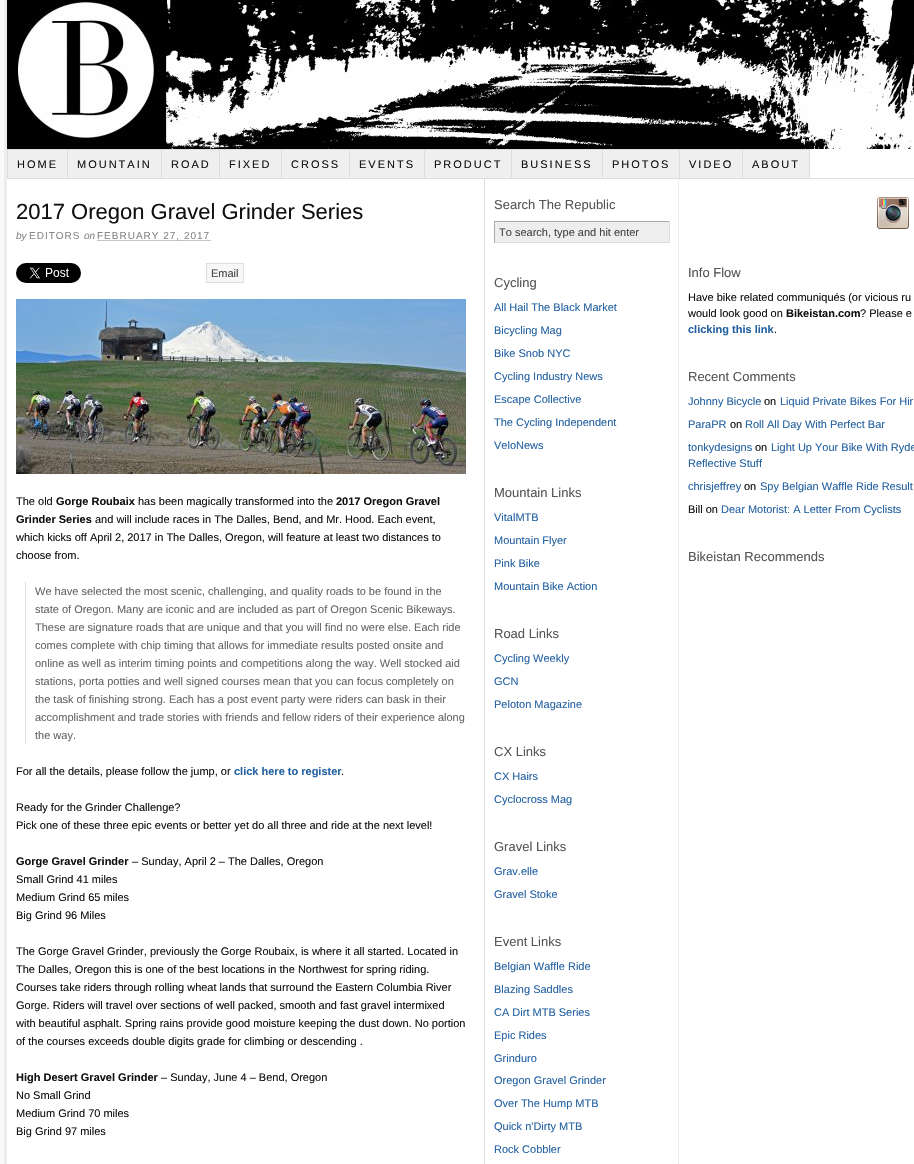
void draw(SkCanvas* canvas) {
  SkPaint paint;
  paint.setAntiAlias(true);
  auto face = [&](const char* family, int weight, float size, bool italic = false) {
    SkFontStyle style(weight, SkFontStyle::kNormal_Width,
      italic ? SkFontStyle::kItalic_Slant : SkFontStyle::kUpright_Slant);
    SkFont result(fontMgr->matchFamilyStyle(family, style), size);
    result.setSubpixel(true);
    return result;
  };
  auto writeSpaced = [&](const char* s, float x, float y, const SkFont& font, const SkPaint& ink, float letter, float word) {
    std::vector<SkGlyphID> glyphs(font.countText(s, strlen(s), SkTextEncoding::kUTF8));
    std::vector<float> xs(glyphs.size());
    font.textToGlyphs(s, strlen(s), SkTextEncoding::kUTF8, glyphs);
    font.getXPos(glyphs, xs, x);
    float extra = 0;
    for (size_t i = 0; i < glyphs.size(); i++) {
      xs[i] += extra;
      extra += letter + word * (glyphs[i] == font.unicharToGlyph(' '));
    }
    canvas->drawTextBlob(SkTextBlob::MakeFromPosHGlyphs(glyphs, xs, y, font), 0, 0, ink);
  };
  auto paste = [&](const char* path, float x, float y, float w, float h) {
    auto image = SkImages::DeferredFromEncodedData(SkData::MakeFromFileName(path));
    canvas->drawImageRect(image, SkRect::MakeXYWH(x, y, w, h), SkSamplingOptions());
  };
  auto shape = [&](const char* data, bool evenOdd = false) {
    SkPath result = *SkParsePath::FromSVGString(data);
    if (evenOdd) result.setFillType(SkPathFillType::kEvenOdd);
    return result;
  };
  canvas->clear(0xffededed);
  paint.setColor(0xfff9f9f9);
  canvas->drawRect(SkRect::MakeXYWH(0, 0, 4, 1164), paint);
  paint.setColor(0xffffffff);
  canvas->drawRect(SkRect::MakeXYWH(7, 149, 907, 1015), paint);
  paste("img/1.png", 7, 0, 907, 149);
  {
    const struct { float x, y, w, h; SkColor color; } items[] = {
      {7, 178, 907, 1, 0xffdddddd},
      {7, 149, 1, 30, 0xffdddddd},
      {8, 150, 59, 28, 0xffefefef},
      {8, 149, 802, 1, 0xffdddddd},
      {67, 149, 1, 30, 0xffdddddd},
      {68, 150, 93, 28, 0xffefefef},
      {161, 149, 1, 30, 0xffdddddd},
      {162, 150, 57, 28, 0xffefefef},
      {219, 149, 1, 30, 0xffdddddd},
      {220, 150, 61, 28, 0xffefefef},
      {281, 149, 1, 30, 0xffdddddd},
      {282, 150, 67, 28, 0xffefefef},
      {349, 149, 1, 30, 0xffdddddd},
      {350, 150, 74, 28, 0xffefefef},
      {424, 149, 1, 30, 0xffdddddd},
      {425, 150, 86, 28, 0xffefefef},
      {511, 149, 1, 30, 0xffdddddd},
      {512, 150, 90, 28, 0xffefefef},
      {602, 149, 1, 30, 0xffdddddd},
      {603, 150, 76, 28, 0xffefefef},
      {679, 149, 1, 30, 0xffdddddd},
      {680, 150, 62, 28, 0xffefefef},
      {742, 149, 1, 30, 0xffdddddd},
      {743, 150, 66, 28, 0xffefefef},
      {809, 149, 1, 30, 0xffdddddd},
      {484, 179, 1, 985, 0xffdddddd},
    };
    for (auto [x, y, w, h, color] : items) {
      paint.setColor(color);
      canvas->drawRect(SkRect::MakeXYWH(x, y, w, h), paint);
    }
  }
  paint.setStroke(true);
  paint.setStrokeWidth(1);
  paint.setColor(0xff888888);
  paint.setPathEffect(SkDashPathEffect::Make({{1, 1}}, 0));
  canvas->drawPath(shape("M97.5 240.5H210.5"), paint);
  paint.setPathEffect(nullptr);
  paste("img/2.png", 16, 263, 65, 20);
  paint.setStroke(false);
  paint.setColor(0xfff7f7f7);
  canvas->drawRect(SkRect::MakeXYWH(206.5f, 263.5f, 37, 19), paint);
  paint.setStroke(true);
  paint.setColor(0xffdddddd);
  canvas->drawRect(SkRect::MakeXYWH(206.5f, 263.5f, 37, 19), paint);
  paste("img/3.png", 16, 299, 450, 175);
  paint.setStroke(false);
  canvas->drawRect(SkRect::MakeXYWH(25, 582, 1, 162), paint);
  paint.setStroke(true);
  paint.setPathEffect(SkDashPathEffect::Make({{1, 1}}, 0));
  canvas->drawPath(shape("M678.5 179V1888"), paint);
  paint.setPathEffect(nullptr);
  paint.setStroke(false);
  {
    const struct { float x, y, w, h; SkColor color; } items[] = {
      {495, 222, 174, 20, 0xffeeeeee},
      {494, 221, 176, 1, 0xffaaaaaa},
      {669, 221, 1, 22, 0xffdddddd},
      {494, 242, 176, 1, 0xffdddddd},
      {494, 221, 1, 22, 0xffaaaaaa},
    };
    for (auto [x, y, w, h, color] : items) {
      paint.setColor(color);
      canvas->drawRect(SkRect::MakeXYWH(x, y, w, h), paint);
    }
  }
  paste("img/4.png", 877, 197, 32, 32);
  auto f0 = face("Liberation Sans", 400, 11);
  paint.setColor(0xff111111);
  {
    const struct { const char* s; float x, y; } items[] = {
      {"HOME", 17, 168},
      {"MOUNTAIN", 77, 168},
      {"ROAD", 171, 168},
      {"FIXED", 229, 168},
      {"CROSS", 291, 168},
      {"EVENTS", 359, 168},
      {"PRODUCT", 434, 168},
      {"BUSINESS", 521, 168},
      {"PHOTOS", 612, 168},
      {"VIDEO", 689, 168},
      {"ABOUT", 752, 168},
    };
    for (auto [s, x, y] : items) {
      writeSpaced(s, x, y, f0, paint, 2, 0);
    }
  }
  auto f1 = face("Liberation Sans", 400, 22);
  canvas->drawString("2017 Oregon Gravel Grinder Series", 16, 219, f1, paint);
  auto f2 = face("Liberation Sans", 400, 10, true);
  paint.setColor(0xff888888);
  canvas->drawString("by", 16, 239, f2, paint);
  auto f3 = face("Liberation Sans", 400, 10);
  writeSpaced("EDITORS", 29, 239, f3, paint, 1, 0);
  canvas->drawString("on", 84, 239, f2, paint);
  writeSpaced("FEBRUARY 27, 2017", 97, 239, f3, paint, 1, 0);
  paint.setColor(0xff444444);
  canvas->drawString("Email", 211, 277, f0, paint);
  paint.setColor(0xff111111);
  canvas->drawString("The old", 16, 505, f0, paint);
  auto f4 = face("Liberation Sans", 700, 11);
  canvas->drawString("Gorge Roubaix", 56, 505, f4, paint);
  canvas->drawString("has been magically transformed into the", 138, 505, f0, paint);
  canvas->drawString("2017 Oregon Gravel", 336, 505, f4, paint);
  canvas->drawString("Grinder Series", 16, 523, f4, paint);
  {
    const struct { const char* s; float x, y; } items[] = {
      {"and will include races in The Dalles, Bend, and Mr. Hood. Each event,", 95, 523},
      {"which kicks off April 2, 2017 in The Dalles, Oregon, will feature at least two distances to", 16, 541},
      {"choose from.", 16, 559},
    };
    for (auto [s, x, y] : items) {
      canvas->drawString(s, x, y, f0, paint);
    }
  }
  paint.setColor(0xff666666);
  {
    const struct { const char* s; float x, y; } items[] = {
      {"We have selected the most scenic, challenging, and quality roads to be found in the", 35, 595},
      {"state of Oregon. Many are iconic and are included as part of Oregon Scenic Bikeways.", 35, 613},
      {"These are signature roads that are unique and that you will find no were else. Each ride", 35, 631},
      {"comes complete with chip timing that allows for immediate results posted onsite and", 35, 649},
      {"online as well as interim timing points and competitions along the way. Well stocked aid", 35, 667},
      {"stations, porta potties and well signed courses mean that you can focus completely on", 35, 685},
      {"the task of finishing strong. Each has a post event party were riders can bask in their", 35, 703},
      {"accomplishment and trade stories with friends and fellow riders of their experience along", 35, 721},
      {"the way.", 35, 739},
    };
    for (auto [s, x, y] : items) {
      canvas->drawString(s, x, y, f0, paint);
    }
  }
  paint.setColor(0xff111111);
  canvas->drawString("For all the details, please follow the jump, or", 16, 775, f0, paint);
  paint.setColor(0xff2361a1);
  canvas->drawString("click here to register", 234, 775, f4, paint);
  paint.setColor(0xff111111);
  {
    const struct { const char* s; float x, y; } items[] = {
      {".", 341, 775},
      {"Ready for the Grinder Challenge?", 16, 811},
      {"Pick one of these three epic events or better yet do all three and ride at the next level!", 16, 829},
    };
    for (auto [s, x, y] : items) {
      canvas->drawString(s, x, y, f0, paint);
    }
  }
  canvas->drawString("Gorge Gravel Grinder", 16, 865, f4, paint);
  {
    const struct { const char* s; float x, y; } items[] = {
      {"– Sunday, April 2 – The Dalles, Oregon", 132, 865},
      {"Small Grind 41 miles", 16, 883},
      {"Medium Grind 65 miles", 16, 901},
      {"Big Grind 96 Miles", 16, 919},
      {"The Gorge Gravel Grinder, previously the Gorge Roubaix, is where it all started. Located in", 16, 955},
      {"The Dalles, Oregon this is one of the best locations in the Northwest for spring riding.", 16, 973},
      {"Courses take riders through rolling wheat lands that surround the Eastern Columbia River", 16, 991},
      {"Gorge. Riders will travel over sections of well packed, smooth and fast gravel intermixed", 16, 1009},
      {"with beautiful asphalt. Spring rains provide good moisture keeping the dust down. No portion", 16, 1027},
      {"of the courses exceeds double digits grade for climbing or descending .", 16, 1045},
    };
    for (auto [s, x, y] : items) {
      canvas->drawString(s, x, y, f0, paint);
    }
  }
  canvas->drawString("High Desert Gravel Grinder", 16, 1081, f4, paint);
  {
    const struct { const char* s; float x, y; } items[] = {
      {"– Sunday, June 4 – Bend, Oregon", 161, 1081},
      {"No Small Grind", 16, 1099},
      {"Medium Grind 70 miles", 16, 1117},
      {"Big Grind 97 miles", 16, 1135},
    };
    for (auto [s, x, y] : items) {
      canvas->drawString(s, x, y, f0, paint);
    }
  }
  auto f5 = face("Liberation Sans", 400, 13);
  paint.setColor(0xff555555);
  canvas->drawString("Search The Republic", 494, 209, f5, paint);
  canvas->save();
  canvas->clipRect(SkRect::MakeXYWH(499, 226, 166, 12));
  paint.setColor(0xff444444);
  canvas->drawString("To search, type and hit enter", 499, 236, f0, paint);
  canvas->restore();
  paint.setColor(0xff555555);
  canvas->drawString("Cycling", 494, 287, f5, paint);
  paint.setColor(0xff2361a1);
  {
    const struct { const char* s; float x, y; } items[] = {
      {"All Hail The Black Market", 494, 311},
      {"Bicycling Mag", 494, 334},
      {"Bike Snob NYC", 494, 357},
      {"Cycling Industry News", 494, 380},
      {"Escape Collective", 494, 403},
      {"The Cycling Independent", 494, 426},
      {"VeloNews", 494, 449},
    };
    for (auto [s, x, y] : items) {
      canvas->drawString(s, x, y, f0, paint);
    }
  }
  paint.setColor(0xff555555);
  canvas->drawString("Mountain Links", 494, 497, f5, paint);
  paint.setColor(0xff2361a1);
  {
    const struct { const char* s; float x, y; } items[] = {
      {"VitalMTB", 494, 521},
      {"Mountain Flyer", 494, 544},
      {"Pink Bike", 494, 567},
      {"Mountain Bike Action", 494, 590},
    };
    for (auto [s, x, y] : items) {
      canvas->drawString(s, x, y, f0, paint);
    }
  }
  paint.setColor(0xff555555);
  canvas->drawString("Road Links", 494, 638, f5, paint);
  paint.setColor(0xff2361a1);
  {
    const struct { const char* s; float x, y; } items[] = {
      {"Cycling Weekly", 494, 662},
      {"GCN", 494, 685},
      {"Peloton Magazine", 494, 708},
    };
    for (auto [s, x, y] : items) {
      canvas->drawString(s, x, y, f0, paint);
    }
  }
  paint.setColor(0xff555555);
  canvas->drawString("CX Links", 494, 756, f5, paint);
  paint.setColor(0xff2361a1);
  canvas->drawString("CX Hairs", 494, 780, f0, paint);
  canvas->drawString("Cyclocross Mag", 494, 803, f0, paint);
  paint.setColor(0xff555555);
  canvas->drawString("Gravel Links", 494, 851, f5, paint);
  paint.setColor(0xff2361a1);
  canvas->drawString("Grav.elle", 494, 875, f0, paint);
  canvas->drawString("Gravel Stoke", 494, 898, f0, paint);
  paint.setColor(0xff555555);
  canvas->drawString("Event Links", 494, 946, f5, paint);
  paint.setColor(0xff2361a1);
  {
    const struct { const char* s; float x, y; } items[] = {
      {"Belgian Waffle Ride", 494, 970},
      {"Blazing Saddles", 494, 993},
      {"CA Dirt MTB Series", 494, 1016},
      {"Epic Rides", 494, 1039},
      {"Grinduro", 494, 1062},
      {"Oregon Gravel Grinder", 494, 1084},
      {"Over The Hump MTB", 494, 1107},
      {"Quick n'Dirty MTB", 494, 1130},
      {"Rock Cobbler", 494, 1153},
    };
    for (auto [s, x, y] : items) {
      canvas->drawString(s, x, y, f0, paint);
    }
  }
  paint.setColor(0xff555555);
  canvas->drawString("Info Flow", 688, 277, f5, paint);
  paint.setColor(0xff111111);
  canvas->drawString("Have bike related communiqués (or vicious ru", 688, 301, f0, paint);
  canvas->drawString("would look good on", 688, 317, f0, paint);
  canvas->drawString("Bikeistan.com", 786, 317, f4, paint);
  canvas->drawString("? Please e", 860, 317, f0, paint);
  paint.setColor(0xff2361a1);
  canvas->drawString("clicking this link", 688, 333, f4, paint);
  paint.setColor(0xff111111);
  canvas->drawString(".", 774, 333, f0, paint);
  paint.setColor(0xff555555);
  canvas->drawString("Recent Comments", 688, 381, f5, paint);
  paint.setColor(0xff2361a1);
  canvas->drawString("Johnny Bicycle", 688, 405, f0, paint);
  paint.setColor(0xff111111);
  canvas->drawString("on", 764, 405, f0, paint);
  paint.setColor(0xff2361a1);
  canvas->drawString("Liquid Private Bikes For Hir", 780, 405, f0, paint);
  canvas->drawString("ParaPR", 688, 428, f0, paint);
  paint.setColor(0xff111111);
  canvas->drawString("on", 730, 428, f0, paint);
  paint.setColor(0xff2361a1);
  canvas->drawString("Roll All Day With Perfect Bar", 745, 428, f0, paint);
  canvas->drawString("tonkydesigns", 688, 451, f0, paint);
  paint.setColor(0xff111111);
  canvas->drawString("on", 755, 451, f0, paint);
  paint.setColor(0xff2361a1);
  {
    const struct { const char* s; float x, y; } items[] = {
      {"Light Up Your Bike With Ryde", 771, 451},
      {"Reflective Stuff", 688, 467},
      {"chrisjeffrey", 688, 490},
    };
    for (auto [s, x, y] : items) {
      canvas->drawString(s, x, y, f0, paint);
    }
  }
  paint.setColor(0xff111111);
  canvas->drawString("on", 744, 490, f0, paint);
  paint.setColor(0xff2361a1);
  canvas->drawString("Spy Belgian Waffle Ride Result", 760, 490, f0, paint);
  paint.setColor(0xff111111);
  canvas->drawString("Bill on", 688, 513, f0, paint);
  paint.setColor(0xff2361a1);
  canvas->drawString("Dear Motorist: A Letter From Cyclists", 721, 513, f0, paint);
  paint.setColor(0xff555555);
  canvas->drawString("Bikeistan Recommends", 688, 561, f5, paint);
}
